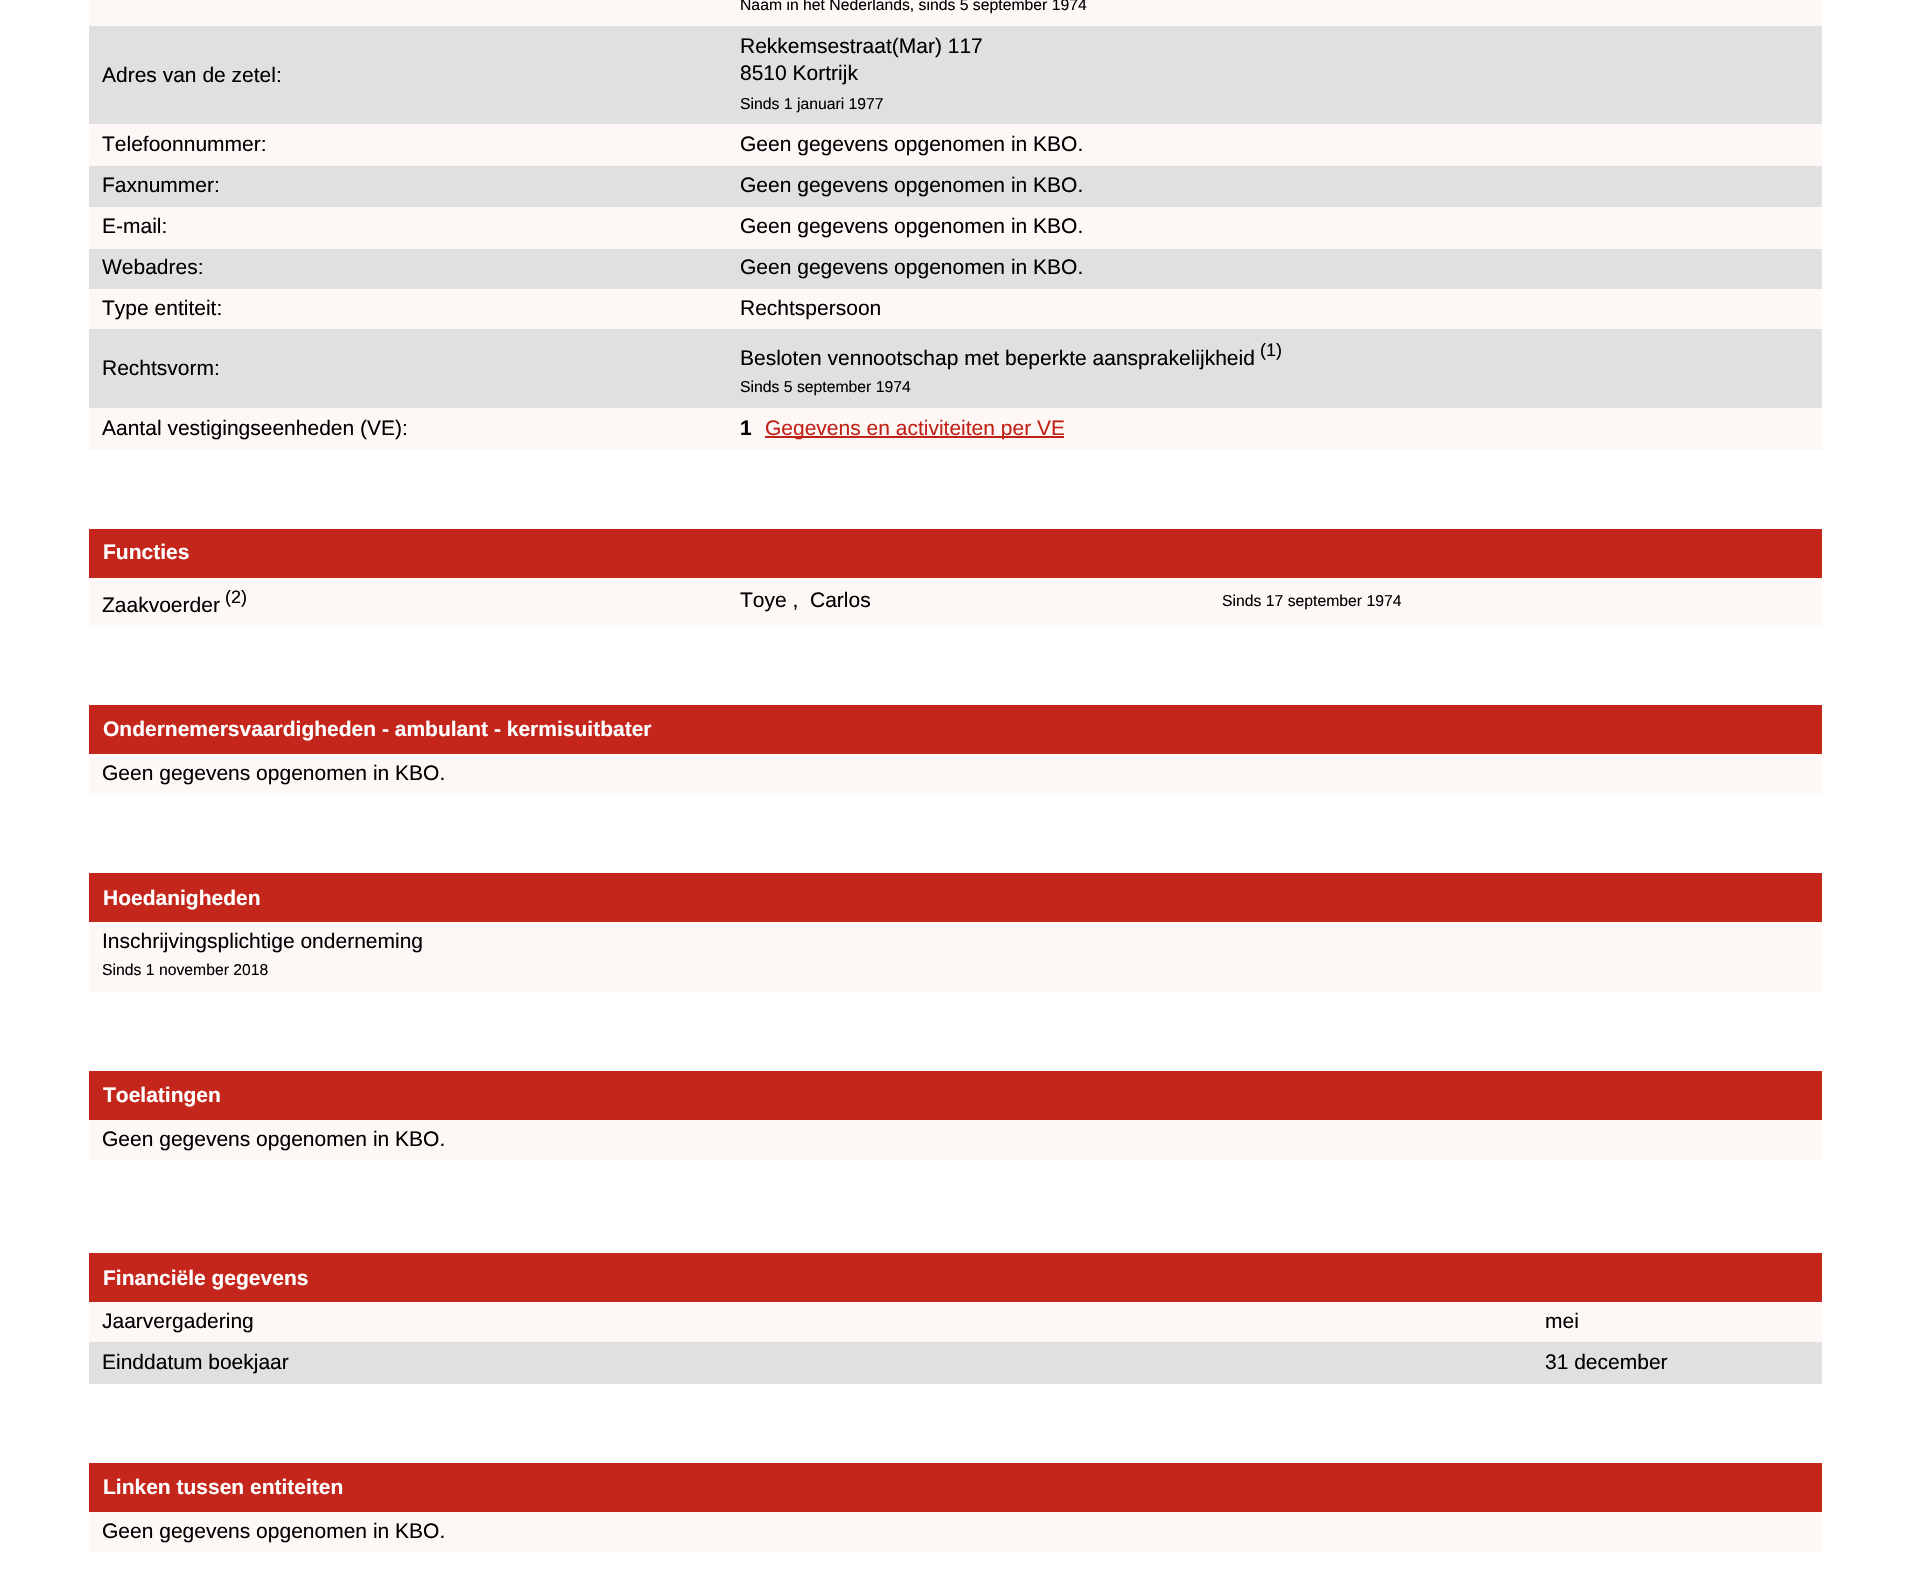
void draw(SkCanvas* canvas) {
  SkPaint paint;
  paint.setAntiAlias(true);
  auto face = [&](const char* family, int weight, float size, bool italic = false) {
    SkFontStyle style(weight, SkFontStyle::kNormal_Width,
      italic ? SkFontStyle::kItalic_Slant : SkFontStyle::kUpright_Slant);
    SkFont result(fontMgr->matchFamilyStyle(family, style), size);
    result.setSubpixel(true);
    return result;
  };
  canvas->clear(0xffffffff);
  {
    const struct { float x, y, w, h; SkColor color; } items[] = {
      {89, 0, 1733, 26, 0xfffdf7f6},
      {89, 26, 1733, 98, 0xffe0e0e0},
      {89, 124, 1733, 42, 0xfffdf7f6},
      {89, 166, 1733, 41, 0xffe0e0e0},
      {89, 207, 1733, 42, 0xfffdf7f6},
      {89, 249, 1733, 40, 0xffe0e0e0},
      {89, 289, 1733, 40, 0xfffdf7f6},
      {89, 329, 1733, 79, 0xffe0e0e0},
      {89, 408, 1733, 42, 0xfffdf7f6},
      {765, 436, 299, 2, 0xffc22117},
      {89, 529, 1733, 49, 0xffc5261b},
      {89, 578, 1733, 49, 0xfffdf7f6},
      {89, 705, 1733, 49, 0xffc5261b},
      {89, 754, 1733, 41, 0xfffdf7f6},
      {89, 873, 1733, 49, 0xffc5261b},
      {89, 922, 1733, 70, 0xfffdf7f6},
      {89, 1071, 1733, 49, 0xffc5261b},
      {89, 1120, 1733, 40, 0xfffdf7f6},
      {89, 1253, 1733, 49, 0xffc5261b},
      {89, 1302, 1733, 40, 0xfffdf7f6},
      {89, 1342, 1733, 42, 0xffe0e0e0},
      {89, 1463, 1733, 49, 0xffc5261b},
      {89, 1512, 1733, 40, 0xfffdf7f6},
    };
    for (auto [x, y, w, h, color] : items) {
      paint.setColor(color);
      canvas->drawRect(SkRect::MakeXYWH(x, y, w, h), paint);
    }
  }
  auto f0 = face("Liberation Sans", 400, 15.75f);
  paint.setColor(0xff000000);
  canvas->drawString("Naam in het Nederlands, sinds 5 september 1974", 740, 10, f0, paint);
  auto f1 = face("Liberation Sans", 400, 21);
  {
    const struct { const char* s; float x, y; } items[] = {
      {"Adres van de zetel:", 102, 82},
      {"Rekkemsestraat(Mar) 117", 740, 53},
      {"8510 Kortrijk", 740, 80},
    };
    for (auto [s, x, y] : items) {
      canvas->drawString(s, x, y, f1, paint);
    }
  }
  canvas->drawString("Sinds 1 januari 1977", 740, 109, f0, paint);
  {
    const struct { const char* s; float x, y; } items[] = {
      {"Telefoonnummer:", 102, 151},
      {"Geen gegevens opgenomen in KBO.", 740, 151},
      {"Faxnummer:", 102, 192},
      {"Geen gegevens opgenomen in KBO.", 740, 192},
      {"E-mail:", 102, 233},
      {"Geen gegevens opgenomen in KBO.", 740, 233},
      {"Webadres:", 102, 274},
      {"Geen gegevens opgenomen in KBO.", 740, 274},
      {"Type entiteit:", 102, 315},
      {"Rechtspersoon", 740, 315},
      {"Rechtsvorm:", 102, 375},
      {"Besloten vennootschap met beperkte aansprakelijkheid", 740, 365},
    };
    for (auto [s, x, y] : items) {
      canvas->drawString(s, x, y, f1, paint);
    }
  }
  auto f2 = face("Liberation Sans", 400, 18);
  canvas->drawString("(1)", 1260, 356, f2, paint);
  canvas->drawString("Sinds 5 september 1974", 740, 392, f0, paint);
  canvas->drawString("Aantal vestigingseenheden (VE):", 102, 435, f1, paint);
  auto f3 = face("Liberation Sans", 700, 21);
  canvas->drawString("1", 740, 435, f3, paint);
  paint.setColor(0xffc22117);
  canvas->drawString("Gegevens en activiteiten per VE", 765, 435, f1, paint);
  paint.setColor(0xffffffff);
  canvas->drawString("Functies", 103, 559, f3, paint);
  paint.setColor(0xff000000);
  canvas->drawString("Zaakvoerder", 102, 612, f1, paint);
  canvas->drawString("(2)", 225, 603, f2, paint);
  canvas->drawString("Toye ,", 740, 607, f1, paint);
  canvas->drawString("Carlos", 810, 607, f1, paint);
  canvas->drawString("Sinds 17 september 1974", 1222, 606, f0, paint);
  paint.setColor(0xffffffff);
  canvas->drawString("Ondernemersvaardigheden - ambulant - kermisuitbater", 103, 736, f3, paint);
  paint.setColor(0xff000000);
  canvas->drawString("Geen gegevens opgenomen in KBO.", 102, 780, f1, paint);
  paint.setColor(0xffffffff);
  canvas->drawString("Hoedanigheden", 103, 905, f3, paint);
  paint.setColor(0xff000000);
  canvas->drawString("Inschrijvingsplichtige onderneming", 102, 948, f1, paint);
  canvas->drawString("Sinds 1 november 2018", 102, 975, f0, paint);
  paint.setColor(0xffffffff);
  canvas->drawString("Toelatingen", 103, 1102, f3, paint);
  paint.setColor(0xff000000);
  canvas->drawString("Geen gegevens opgenomen in KBO.", 102, 1146, f1, paint);
  paint.setColor(0xffffffff);
  canvas->drawString("Financiële gegevens", 103, 1285, f3, paint);
  paint.setColor(0xff000000);
  {
    const struct { const char* s; float x, y; } items[] = {
      {"Jaarvergadering", 102, 1328},
      {"mei", 1545, 1328},
      {"Einddatum boekjaar", 102, 1369},
      {"31 december", 1545, 1369},
    };
    for (auto [s, x, y] : items) {
      canvas->drawString(s, x, y, f1, paint);
    }
  }
  paint.setColor(0xffffffff);
  canvas->drawString("Linken tussen entiteiten", 103, 1494, f3, paint);
  paint.setColor(0xff000000);
  canvas->drawString("Geen gegevens opgenomen in KBO.", 102, 1538, f1, paint);
}
